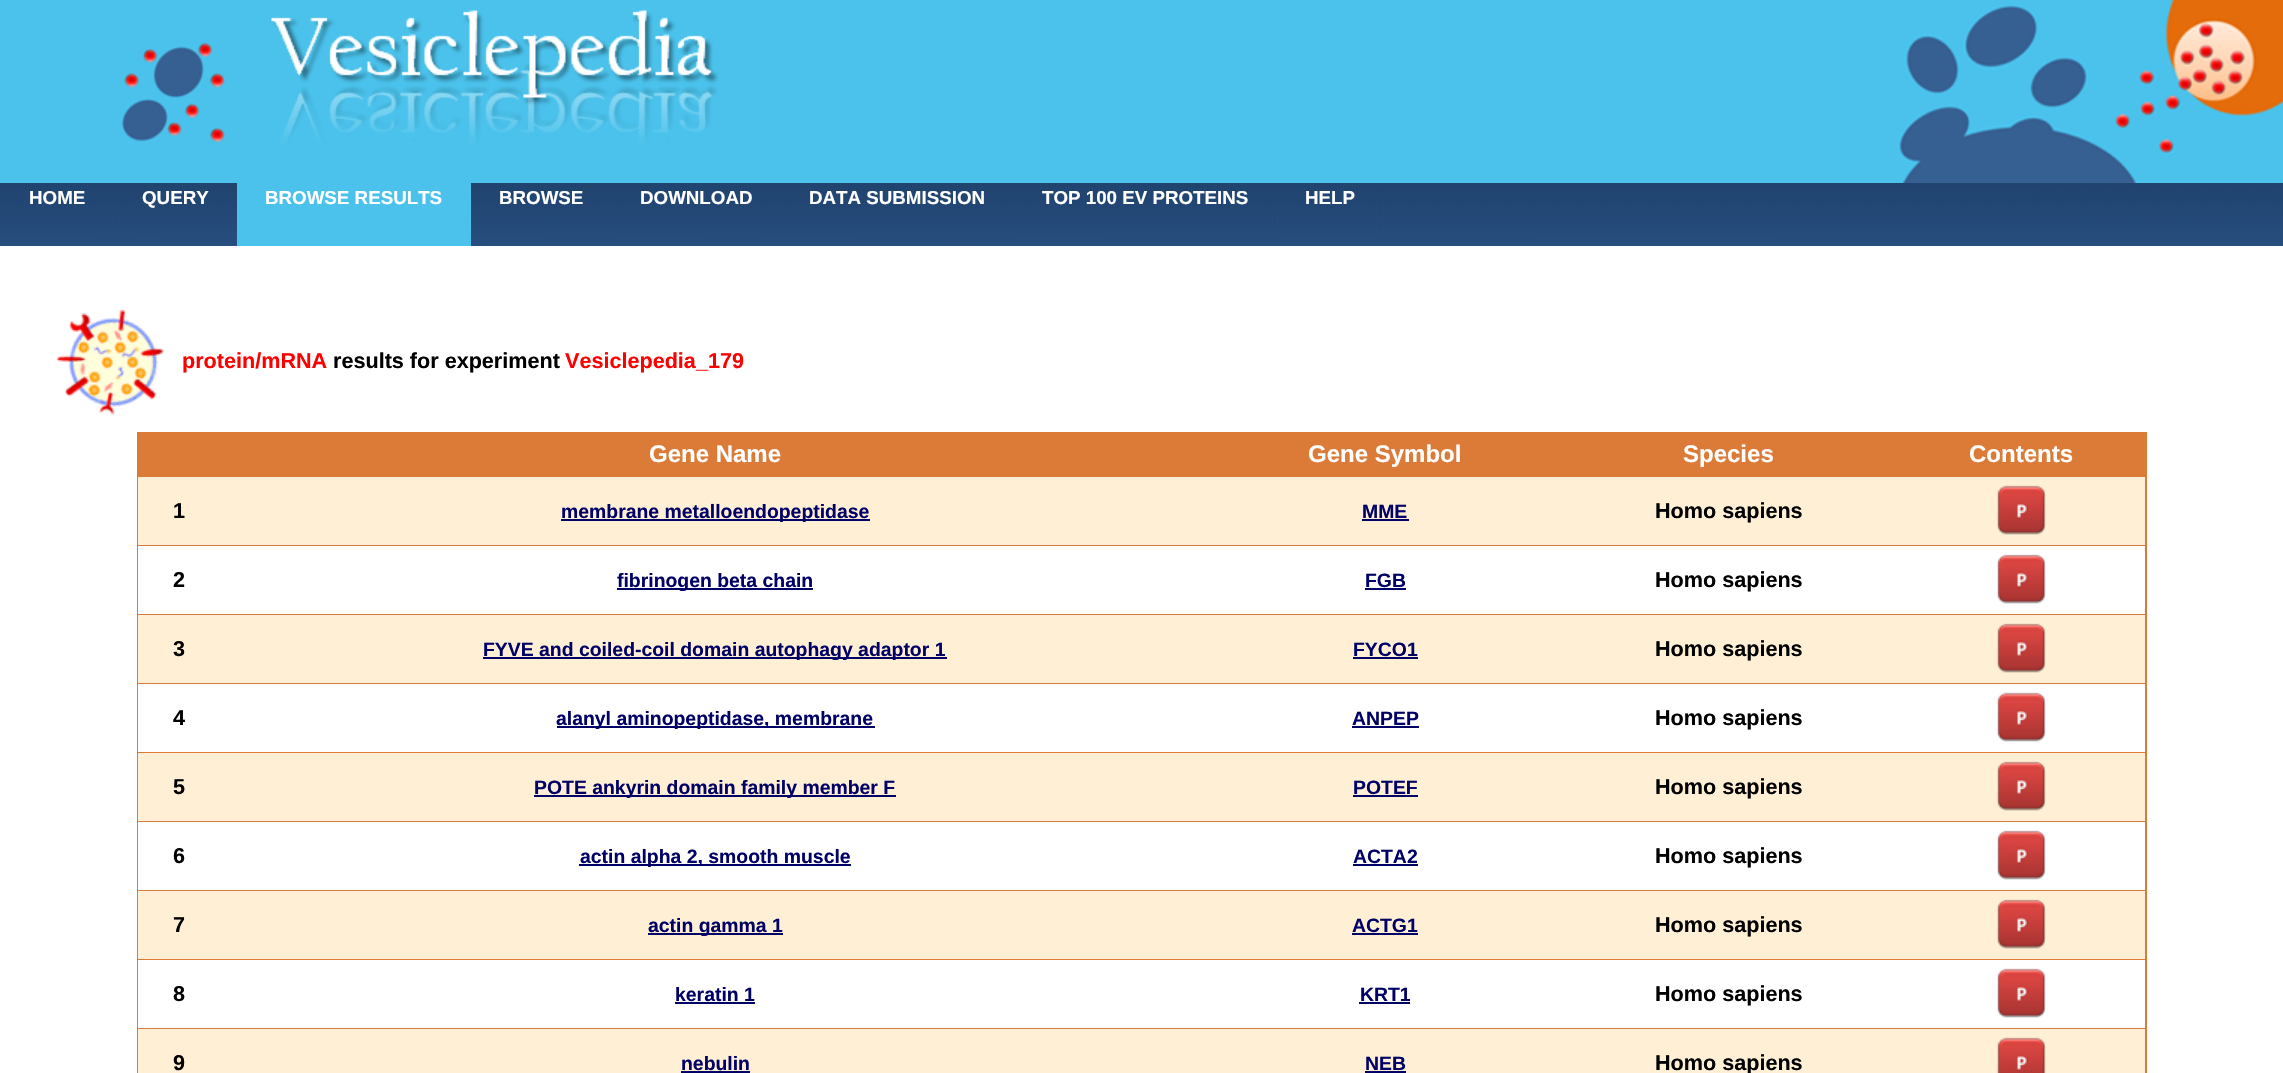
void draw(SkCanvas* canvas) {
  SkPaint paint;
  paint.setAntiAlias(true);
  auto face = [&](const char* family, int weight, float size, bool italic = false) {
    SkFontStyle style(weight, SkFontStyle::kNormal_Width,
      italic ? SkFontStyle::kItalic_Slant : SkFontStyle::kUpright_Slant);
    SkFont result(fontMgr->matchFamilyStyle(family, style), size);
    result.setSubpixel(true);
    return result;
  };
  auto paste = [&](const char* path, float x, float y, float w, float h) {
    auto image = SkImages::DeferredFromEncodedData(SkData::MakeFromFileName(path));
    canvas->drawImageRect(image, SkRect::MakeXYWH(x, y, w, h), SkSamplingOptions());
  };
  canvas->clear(0xffffffff);
  paint.setColor(0xff4ac2ec);
  canvas->drawRect(SkRect::MakeXYWH(0, 0, 1898, 183), paint);
  paste("img/1.png", 121, 42, 104, 102);
  paste("img/2.png", 1898, 0, 385, 183);
  paste("img/3.png", 271, 10, 448, 134);
  paste("img/4.png", 112, 183, 2171, 63);
  paste("img/5.png", 0, 183, 113, 63);
  paste("img/6.png", 112, 183, 125, 63);
  canvas->drawRect(SkRect::MakeXYWH(237, 183, 234, 63), paint);
  paste("img/7.png", 471, 183, 141, 63);
  paste("img/8.png", 612, 183, 168, 63);
  paste("img/9.png", 780, 183, 234, 63);
  paste("img/10.png", 1014, 183, 263, 63);
  paste("img/11.png", 1276, 183, 107, 63);
  paste("img/12.png", 56, 309, 108, 107);
  {
    const struct { float x, y, w, h; SkColor color; } items[] = {
      {137, 432, 2010, 641, 0xffdb7b37},
      {138, 477, 2007, 68, 0xffffefd5},
      {561, 519, 309, 2, 0xff000066},
      {1362, 519, 47, 2, 0xff000066},
    };
    for (auto [x, y, w, h, color] : items) {
      paint.setColor(color);
      canvas->drawRect(SkRect::MakeXYWH(x, y, w, h), paint);
    }
  }
  paste("img/13.png", 1997, 485, 49, 50);
  {
    const struct { float x, y, w, h; SkColor color; } items[] = {
      {138, 546, 2007, 68, 0xffffffff},
      {617, 588, 196, 2, 0xff000066},
      {1365, 588, 41, 2, 0xff000066},
    };
    for (auto [x, y, w, h, color] : items) {
      paint.setColor(color);
      canvas->drawRect(SkRect::MakeXYWH(x, y, w, h), paint);
    }
  }
  paste("img/14.png", 1997, 554, 49, 50);
  {
    const struct { float x, y, w, h; SkColor color; } items[] = {
      {138, 615, 2007, 68, 0xffffefd5},
      {483, 657, 464, 2, 0xff000066},
      {1353, 657, 65, 2, 0xff000066},
    };
    for (auto [x, y, w, h, color] : items) {
      paint.setColor(color);
      canvas->drawRect(SkRect::MakeXYWH(x, y, w, h), paint);
    }
  }
  paste("img/13.png", 1997, 623, 49, 50);
  {
    const struct { float x, y, w, h; SkColor color; } items[] = {
      {138, 684, 2007, 68, 0xffffffff},
      {557, 726, 318, 2, 0xff000066},
      {1352, 726, 67, 2, 0xff000066},
    };
    for (auto [x, y, w, h, color] : items) {
      paint.setColor(color);
      canvas->drawRect(SkRect::MakeXYWH(x, y, w, h), paint);
    }
  }
  paste("img/14.png", 1997, 692, 49, 50);
  {
    const struct { float x, y, w, h; SkColor color; } items[] = {
      {138, 753, 2007, 68, 0xffffefd5},
      {534, 795, 362, 2, 0xff000066},
      {1353, 795, 65, 2, 0xff000066},
    };
    for (auto [x, y, w, h, color] : items) {
      paint.setColor(color);
      canvas->drawRect(SkRect::MakeXYWH(x, y, w, h), paint);
    }
  }
  paste("img/13.png", 1997, 761, 49, 50);
  {
    const struct { float x, y, w, h; SkColor color; } items[] = {
      {138, 822, 2007, 68, 0xffffffff},
      {579, 864, 272, 2, 0xff000066},
      {1353, 864, 65, 2, 0xff000066},
    };
    for (auto [x, y, w, h, color] : items) {
      paint.setColor(color);
      canvas->drawRect(SkRect::MakeXYWH(x, y, w, h), paint);
    }
  }
  paste("img/14.png", 1997, 830, 49, 50);
  {
    const struct { float x, y, w, h; SkColor color; } items[] = {
      {138, 891, 2007, 68, 0xffffefd5},
      {648, 933, 135, 2, 0xff000066},
      {1352, 933, 66, 2, 0xff000066},
    };
    for (auto [x, y, w, h, color] : items) {
      paint.setColor(color);
      canvas->drawRect(SkRect::MakeXYWH(x, y, w, h), paint);
    }
  }
  paste("img/13.png", 1997, 899, 49, 50);
  {
    const struct { float x, y, w, h; SkColor color; } items[] = {
      {138, 960, 2007, 68, 0xffffffff},
      {675, 1002, 80, 2, 0xff000066},
      {1359, 1002, 51, 2, 0xff000066},
    };
    for (auto [x, y, w, h, color] : items) {
      paint.setColor(color);
      canvas->drawRect(SkRect::MakeXYWH(x, y, w, h), paint);
    }
  }
  paste("img/14.png", 1997, 968, 49, 50);
  {
    const struct { float x, y, w, h; SkColor color; } items[] = {
      {138, 1029, 2007, 44, 0xffffefd5},
      {681, 1071, 69, 2, 0xff000066},
      {1365, 1071, 41, 2, 0xff000066},
    };
    for (auto [x, y, w, h, color] : items) {
      paint.setColor(color);
      canvas->drawRect(SkRect::MakeXYWH(x, y, w, h), paint);
    }
  }
  paste("img/15.png", 1997, 1037, 49, 36);
  auto f0 = face("Liberation Sans", 700, 18.75f);
  paint.setColor(0xffffffff);
  {
    const struct { const char* s; float x, y; } items[] = {
      {"HOME", 29, 204},
      {"QUERY", 142, 204},
      {"BROWSE RESULTS", 265, 204},
      {"BROWSE", 499, 204},
      {"DOWNLOAD", 640, 204},
      {"DATA SUBMISSION", 809, 204},
      {"TOP 100 EV PROTEINS", 1042, 204},
      {"HELP", 1305, 204},
    };
    for (auto [s, x, y] : items) {
      canvas->drawString(s, x, y, f0, paint);
    }
  }
  auto f1 = face("Liberation Sans", 700, 21.6f);
  paint.setColor(0xffff0000);
  canvas->drawString("protein/mRNA", 182, 368, f1, paint);
  paint.setColor(0xff000000);
  canvas->drawString("results for experiment", 333, 368, f1, paint);
  paint.setColor(0xffff0000);
  canvas->drawString("Vesiclepedia_179", 565, 368, f1, paint);
  auto f2 = face("Liberation Sans", 700, 24);
  paint.setColor(0xffffffff);
  {
    const struct { const char* s; float x, y; } items[] = {
      {"Gene Name", 649, 462},
      {"Gene Symbol", 1308, 462},
      {"Species", 1683, 462},
      {"Contents", 1969, 462},
    };
    for (auto [s, x, y] : items) {
      canvas->drawString(s, x, y, f2, paint);
    }
  }
  paint.setColor(0xff000000);
  canvas->drawString("1", 173, 518, f1, paint);
  auto f3 = face("Liberation Sans", 700, 19.4f);
  paint.setColor(0xff000066);
  canvas->drawString("membrane metalloendopeptidase", 561, 518, f3, paint);
  canvas->drawString("MME", 1362, 518, f3, paint);
  paint.setColor(0xff000000);
  canvas->drawString("Homo sapiens", 1655, 518, f1, paint);
  canvas->drawString("2", 173, 587, f1, paint);
  paint.setColor(0xff000066);
  canvas->drawString("fibrinogen beta chain", 617, 587, f3, paint);
  canvas->drawString("FGB", 1365, 587, f3, paint);
  paint.setColor(0xff000000);
  canvas->drawString("Homo sapiens", 1655, 587, f1, paint);
  canvas->drawString("3", 173, 656, f1, paint);
  paint.setColor(0xff000066);
  canvas->drawString("FYVE and coiled-coil domain autophagy adaptor 1", 483, 656, f3, paint);
  canvas->drawString("FYCO1", 1353, 656, f3, paint);
  paint.setColor(0xff000000);
  canvas->drawString("Homo sapiens", 1655, 656, f1, paint);
  canvas->drawString("4", 173, 725, f1, paint);
  paint.setColor(0xff000066);
  canvas->drawString("alanyl aminopeptidase, membrane", 556, 725, f3, paint);
  canvas->drawString("ANPEP", 1352, 725, f3, paint);
  paint.setColor(0xff000000);
  canvas->drawString("Homo sapiens", 1655, 725, f1, paint);
  canvas->drawString("5", 173, 794, f1, paint);
  paint.setColor(0xff000066);
  canvas->drawString("POTE ankyrin domain family member F", 534, 794, f3, paint);
  canvas->drawString("POTEF", 1353, 794, f3, paint);
  paint.setColor(0xff000000);
  canvas->drawString("Homo sapiens", 1655, 794, f1, paint);
  canvas->drawString("6", 173, 863, f1, paint);
  paint.setColor(0xff000066);
  canvas->drawString("actin alpha 2, smooth muscle", 580, 863, f3, paint);
  canvas->drawString("ACTA2", 1353, 863, f3, paint);
  paint.setColor(0xff000000);
  canvas->drawString("Homo sapiens", 1655, 863, f1, paint);
  canvas->drawString("7", 173, 932, f1, paint);
  paint.setColor(0xff000066);
  canvas->drawString("actin gamma 1", 648, 932, f3, paint);
  canvas->drawString("ACTG1", 1352, 932, f3, paint);
  paint.setColor(0xff000000);
  canvas->drawString("Homo sapiens", 1655, 932, f1, paint);
  canvas->drawString("8", 173, 1001, f1, paint);
  paint.setColor(0xff000066);
  canvas->drawString("keratin 1", 675, 1001, f3, paint);
  canvas->drawString("KRT1", 1360, 1001, f3, paint);
  paint.setColor(0xff000000);
  canvas->drawString("Homo sapiens", 1655, 1001, f1, paint);
  canvas->drawString("9", 173, 1070, f1, paint);
  paint.setColor(0xff000066);
  canvas->drawString("nebulin", 681, 1070, f3, paint);
  canvas->drawString("NEB", 1365, 1070, f3, paint);
  paint.setColor(0xff000000);
  canvas->drawString("Homo sapiens", 1655, 1070, f1, paint);
}
